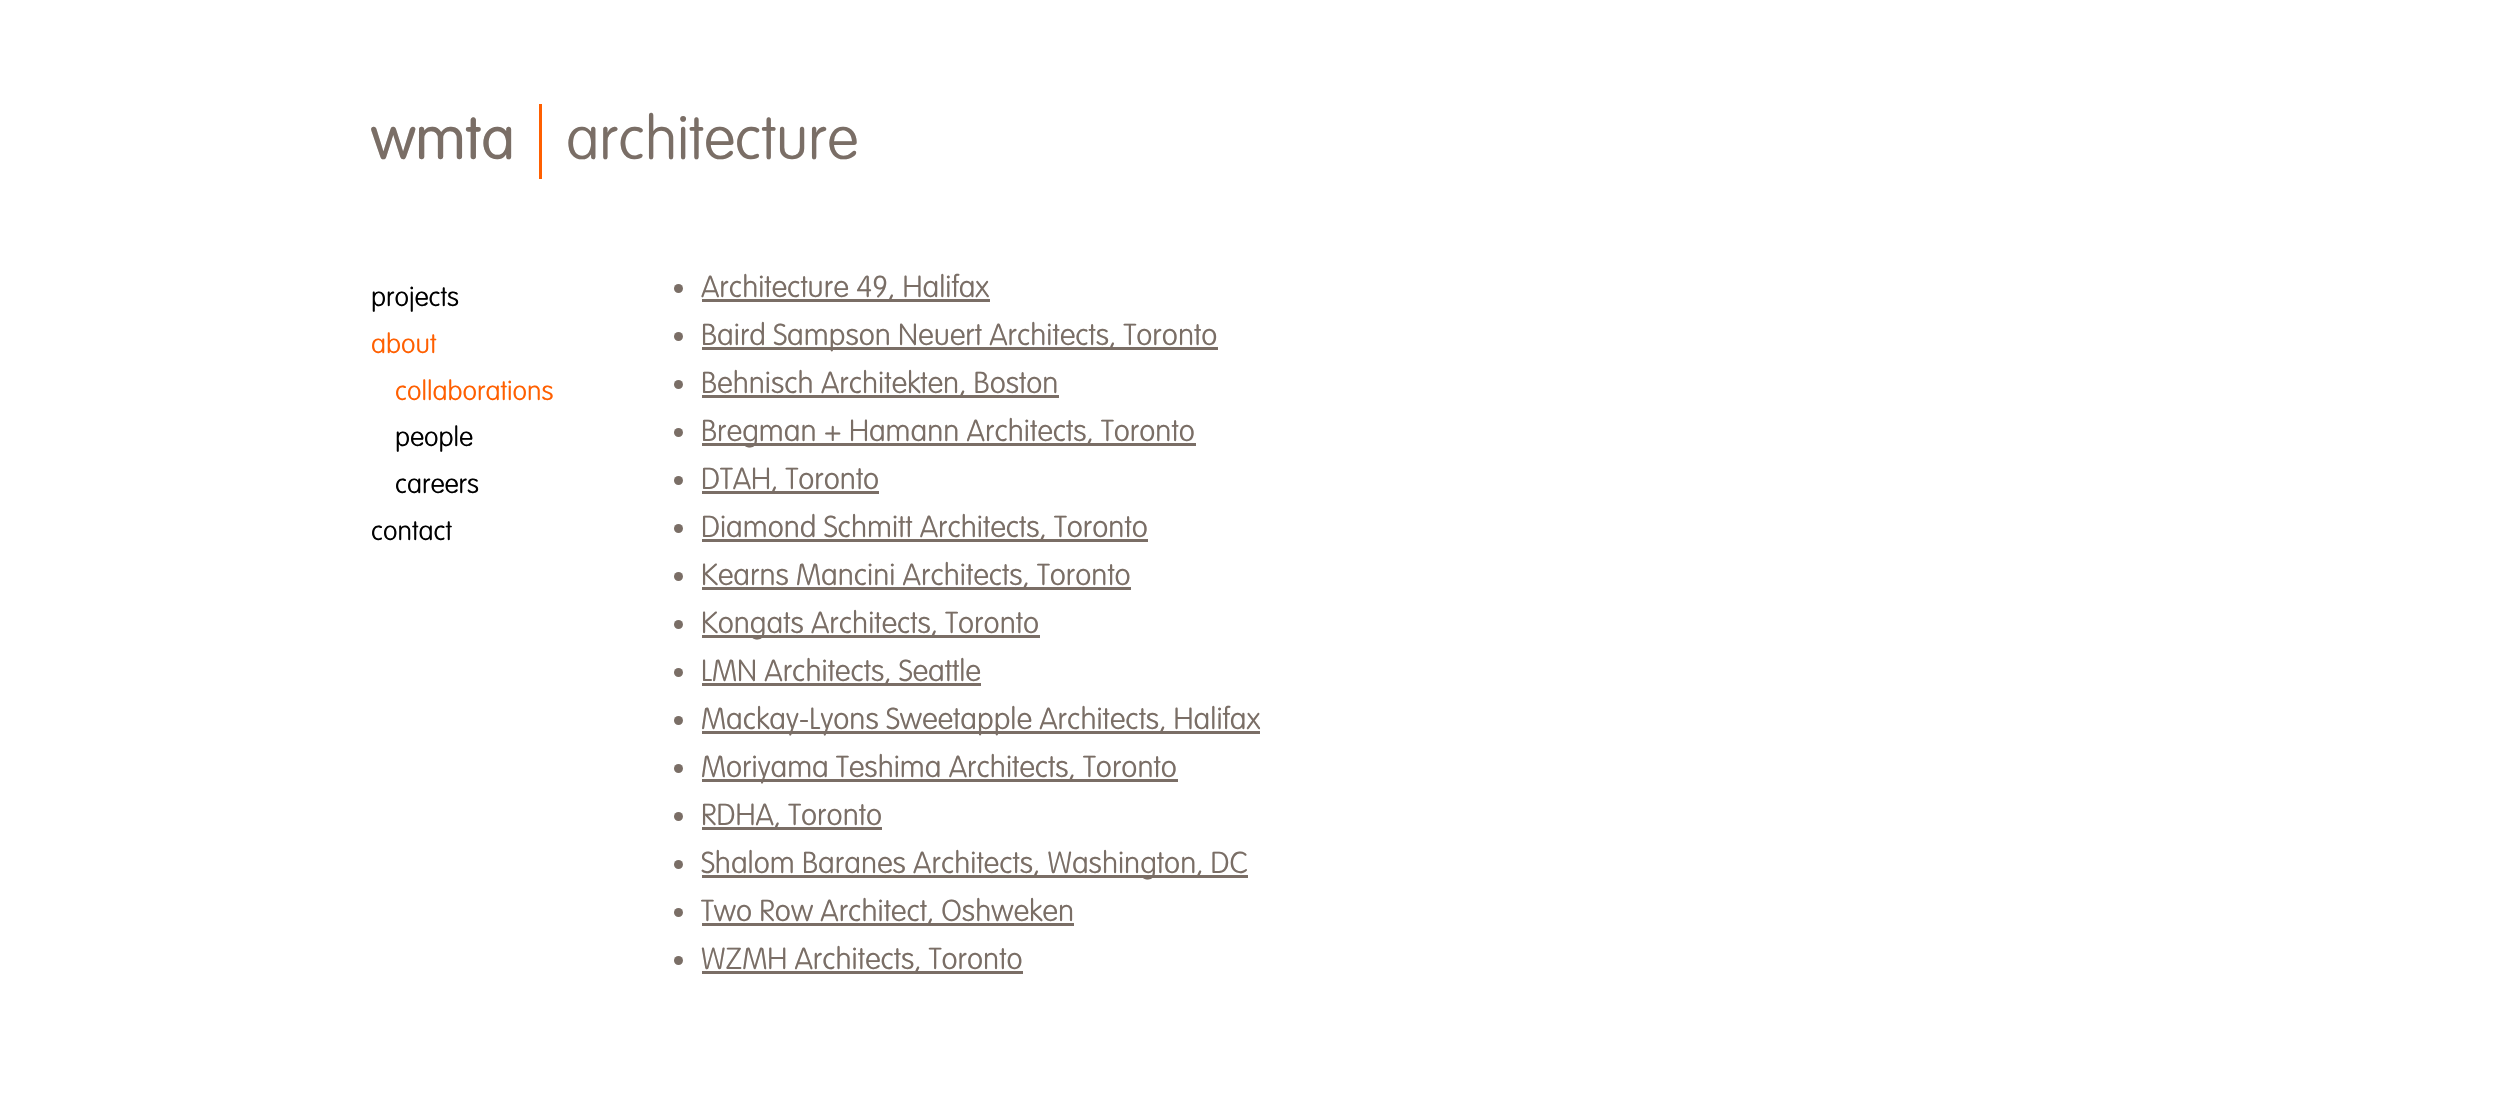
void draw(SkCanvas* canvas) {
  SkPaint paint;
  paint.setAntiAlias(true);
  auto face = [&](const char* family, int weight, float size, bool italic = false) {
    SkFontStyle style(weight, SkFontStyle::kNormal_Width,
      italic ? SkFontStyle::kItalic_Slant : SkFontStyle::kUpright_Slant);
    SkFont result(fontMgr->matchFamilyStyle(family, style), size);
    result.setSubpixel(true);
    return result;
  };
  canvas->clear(0xffffffff);
  paint.setColor(0xffff5f00);
  canvas->drawRect(SkRect::MakeXYWH(539, 104, 3, 75), paint);
  paint.setColor(0xff7a6e66);
  canvas->drawCircle(678.5f, 288.5f, 4.5f, paint);
  canvas->drawRect(SkRect::MakeXYWH(702, 299, 288, 3), paint);
  canvas->drawCircle(678.5f, 336.5f, 4.5f, paint);
  canvas->drawRect(SkRect::MakeXYWH(702, 347, 516, 3), paint);
  canvas->drawCircle(678.5f, 384.5f, 4.5f, paint);
  canvas->drawRect(SkRect::MakeXYWH(702, 395, 357, 3), paint);
  canvas->drawCircle(678.5f, 432.5f, 4.5f, paint);
  canvas->drawRect(SkRect::MakeXYWH(702, 443, 494, 3), paint);
  canvas->drawCircle(678.5f, 480.5f, 4.5f, paint);
  canvas->drawRect(SkRect::MakeXYWH(702, 491, 177, 3), paint);
  canvas->drawCircle(678.5f, 528.5f, 4.5f, paint);
  canvas->drawRect(SkRect::MakeXYWH(702, 539, 446, 3), paint);
  canvas->drawCircle(678.5f, 576.5f, 4.5f, paint);
  canvas->drawRect(SkRect::MakeXYWH(702, 587, 429, 3), paint);
  canvas->drawCircle(678.5f, 624.5f, 4.5f, paint);
  canvas->drawRect(SkRect::MakeXYWH(702, 635, 338, 3), paint);
  canvas->drawCircle(678.5f, 672.5f, 4.5f, paint);
  canvas->drawRect(SkRect::MakeXYWH(702, 683, 279, 3), paint);
  canvas->drawCircle(678.5f, 720.5f, 4.5f, paint);
  canvas->drawRect(SkRect::MakeXYWH(702, 731, 558, 3), paint);
  canvas->drawCircle(678.5f, 768.5f, 4.5f, paint);
  canvas->drawRect(SkRect::MakeXYWH(702, 779, 476, 3), paint);
  canvas->drawCircle(678.5f, 816.5f, 4.5f, paint);
  canvas->drawRect(SkRect::MakeXYWH(702, 827, 180, 3), paint);
  canvas->drawCircle(678.5f, 864.5f, 4.5f, paint);
  canvas->drawRect(SkRect::MakeXYWH(702, 875, 546, 3), paint);
  canvas->drawCircle(678.5f, 912.5f, 4.5f, paint);
  canvas->drawRect(SkRect::MakeXYWH(702, 923, 372, 3), paint);
  canvas->drawCircle(678.5f, 960.5f, 4.5f, paint);
  canvas->drawRect(SkRect::MakeXYWH(702, 971, 321, 3), paint);
  auto f0 = face("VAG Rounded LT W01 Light", 300, 60);
  canvas->drawString("wmta", 371, 159, f0, paint);
  auto f1 = face("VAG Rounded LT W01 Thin", 100, 60);
  canvas->drawString("architecture", 566, 159, f1, paint);
  auto f2 = face("VAG Rounded LT W01 Thin", 100, 27);
  paint.setColor(0xff000000);
  canvas->drawString("projects", 371, 306, f2, paint);
  paint.setColor(0xffff5f00);
  canvas->drawString("about", 371, 353, f2, paint);
  canvas->drawString("collaborations", 395, 400, f2, paint);
  paint.setColor(0xff000000);
  {
    const struct { const char* s; float x, y; } items[] = {
      {"people", 395, 446},
      {"careers", 395, 493},
      {"contact", 371, 540},
    };
    for (auto [s, x, y] : items) {
      canvas->drawString(s, x, y, f2, paint);
    }
  }
  auto f3 = face("VAG Rounded LT W01 Thin", 100, 30);
  paint.setColor(0xff7a6e66);
  {
    const struct { const char* s; float x, y; } items[] = {
      {"Architecture 49, Halifax", 701, 297},
      {"Baird Sampson Neuert Architects, Toronto", 701, 345},
      {"Behnisch Architekten, Boston", 701, 393},
      {"Bregman + Hamann Architects, Toronto", 701, 441},
      {"DTAH, Toronto", 701, 489},
      {"Diamond Schmitt Architects, Toronto", 701, 537},
      {"Kearns Mancini Architects, Toronto", 701, 585},
      {"Kongats Architects, Toronto", 701, 633},
      {"LMN Architects, Seattle", 701, 681},
      {"Mackay-Lyons Sweetapple Architects, Halifax", 701, 729},
      {"Moriyama Teshima Architects, Toronto", 701, 777},
      {"RDHA, Toronto", 701, 825},
      {"Shalom Baranes Architects, Washington, DC", 701, 873},
      {"Two Row Architect, Oshweken", 701, 921},
      {"WZMH Architects, Toronto", 701, 969},
    };
    for (auto [s, x, y] : items) {
      canvas->drawString(s, x, y, f3, paint);
    }
  }
}
